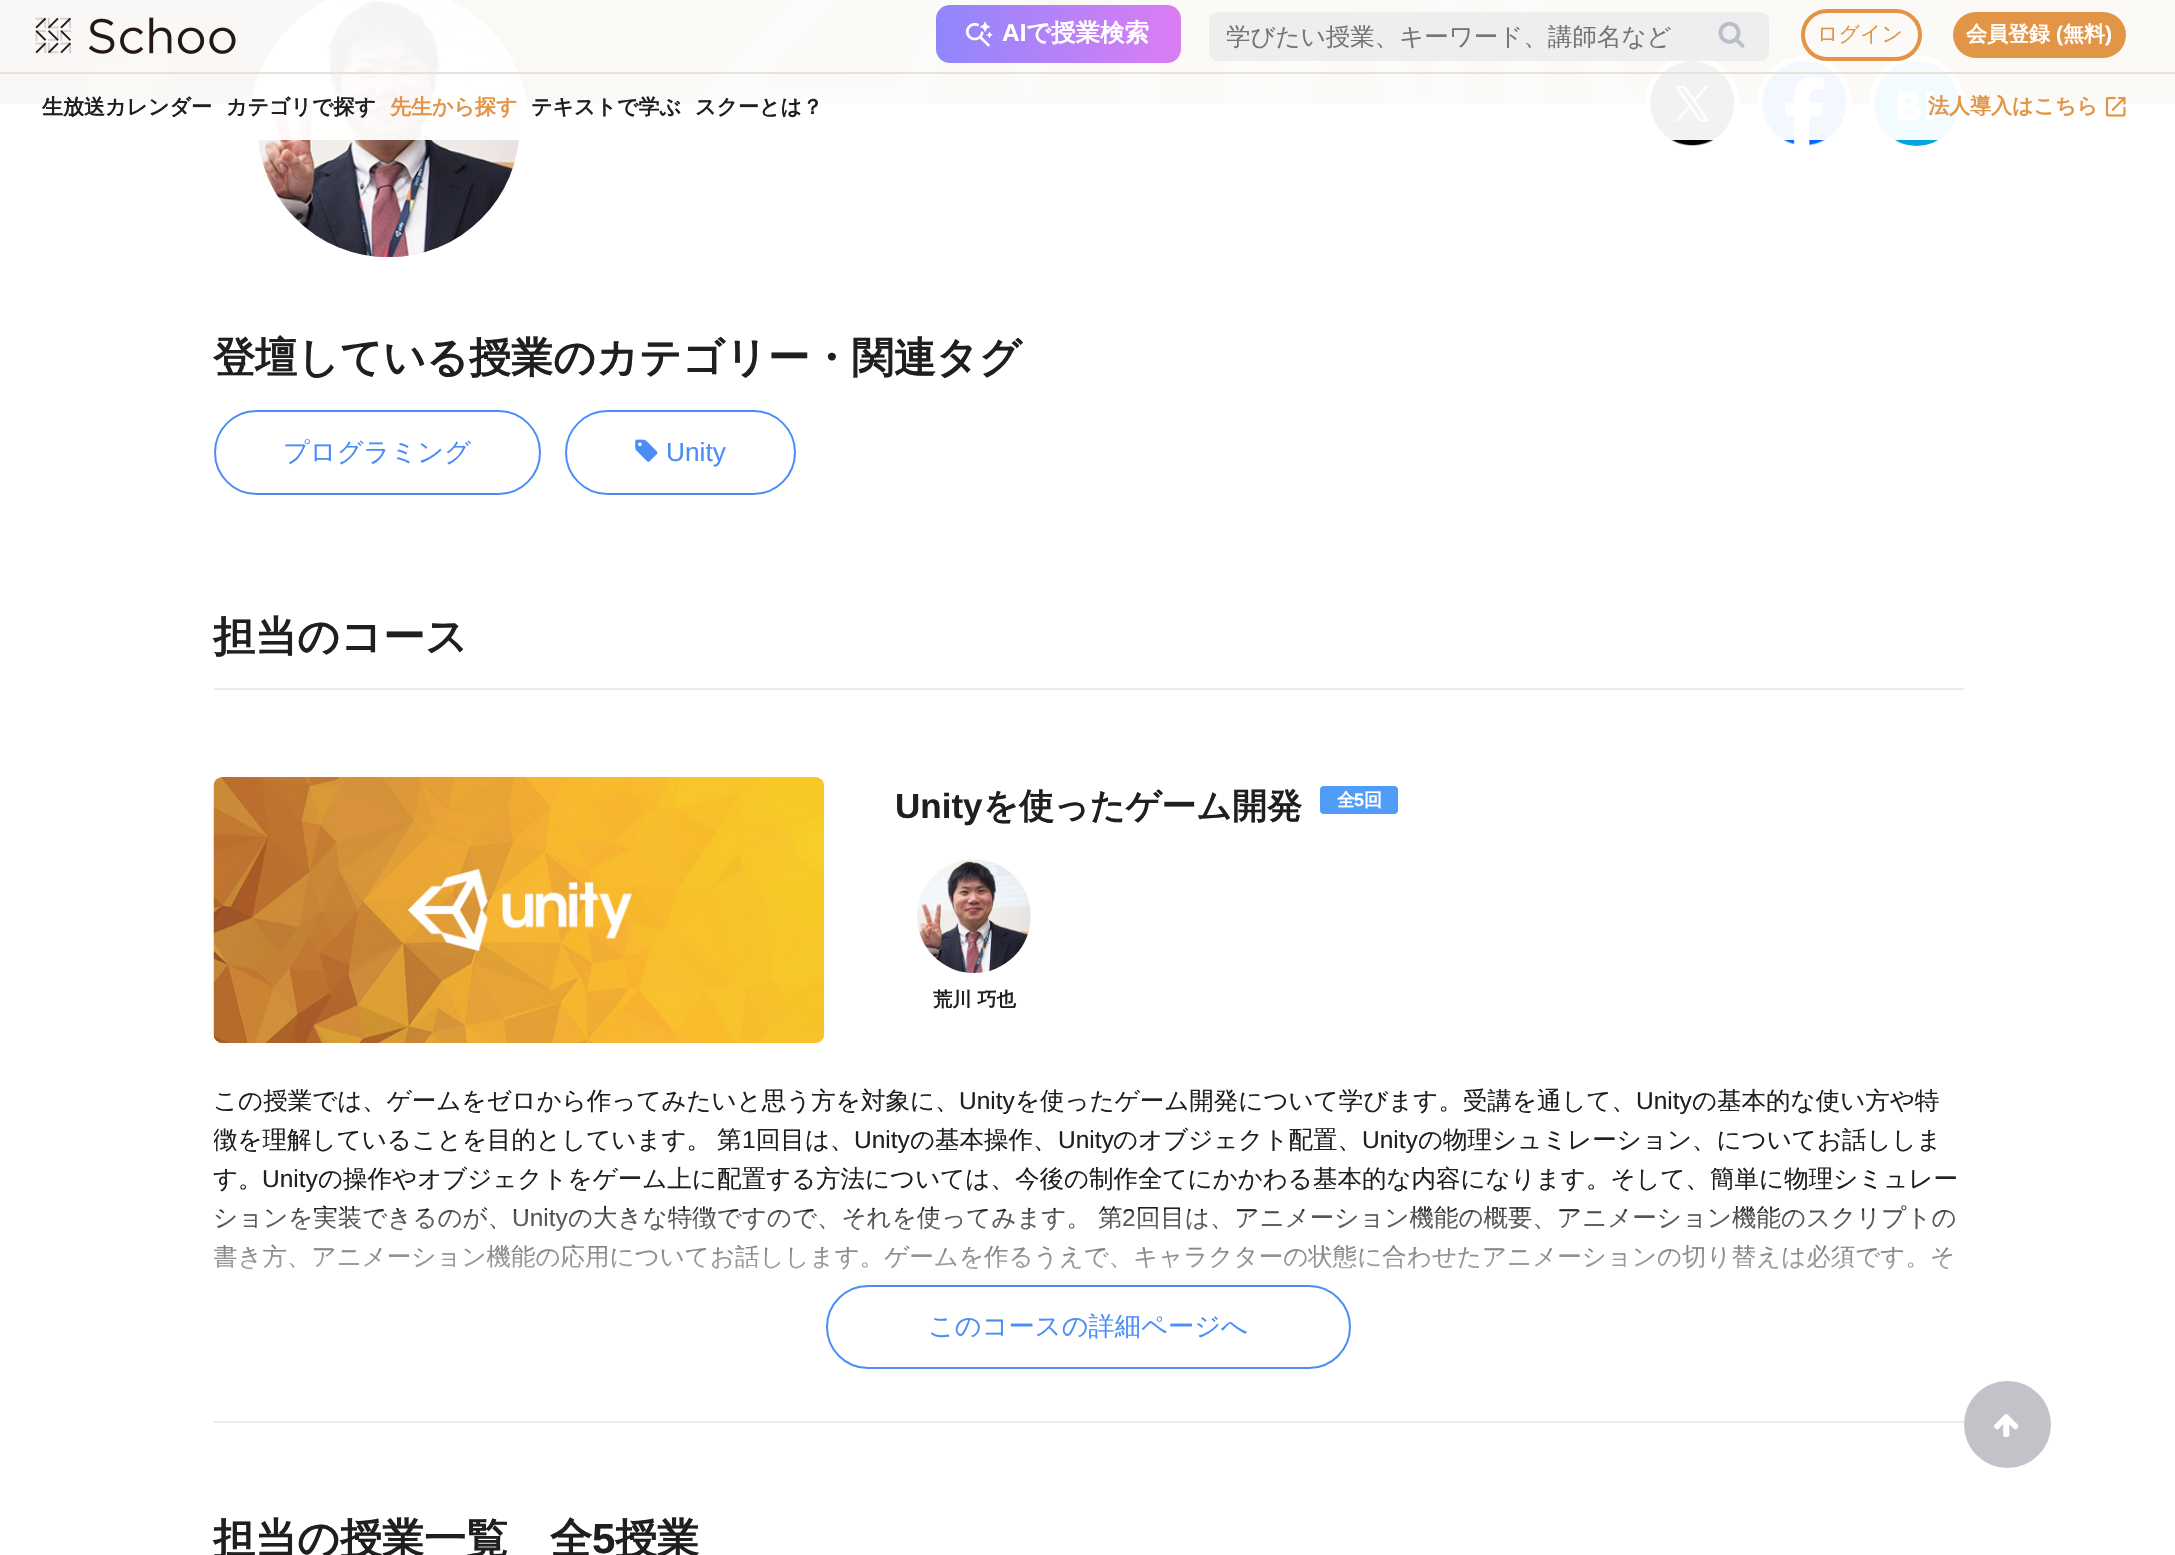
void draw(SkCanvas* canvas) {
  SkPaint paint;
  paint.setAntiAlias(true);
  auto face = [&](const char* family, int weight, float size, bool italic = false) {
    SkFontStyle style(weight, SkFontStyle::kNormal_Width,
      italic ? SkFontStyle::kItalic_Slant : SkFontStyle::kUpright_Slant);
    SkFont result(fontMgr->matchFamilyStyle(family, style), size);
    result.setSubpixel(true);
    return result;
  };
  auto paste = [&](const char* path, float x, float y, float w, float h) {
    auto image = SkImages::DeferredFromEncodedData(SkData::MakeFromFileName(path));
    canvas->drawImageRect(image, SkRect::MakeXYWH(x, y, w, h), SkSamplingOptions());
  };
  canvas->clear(0xffffffff);
  paste("img/5.png", 0, 0, 2175, 104);
  paint.setStroke(true);
  paint.setStrokeWidth(9);
  paint.setColor(0xffffffff);
  canvas->drawCircle(389, 126, 135.5f, paint);
  paste("img/1.png", 257, 0, 263, 258);
  paint.setStrokeWidth(5);
  canvas->drawCircle(1692.5f, 103.5f, 45, paint);
  paste("img/2.png", 1650, 61, 85, 85);
  canvas->drawCircle(1804.5f, 103.5f, 45, paint);
  paste("img/3.png", 1762, 61, 85, 85);
  paint.setStroke(false);
  paint.setColor(0xff03a4de);
  canvas->drawCircle(1916.5f, 103.5f, 45, paint);
  paint.setStroke(true);
  paint.setColor(0xffffffff);
  canvas->drawCircle(1916.5f, 103.5f, 45, paint);
  paste("img/4.png", 1884, 91, 49, 47);
  paint.setStroke(false);
  paint.setColor(0xf2ffffff);
  canvas->drawRect(SkRect::MakeXYWH(0, 0, 2175, 140), paint);
  paste("img/6.png", 35, 17, 201, 37);
  {
    const SkColor colors[] = {0xff9086fc, 0xffdb7df3};
    const float stops[] = {0, 1};
    const SkPoint ends[] = {{936, 34}, {1181, 34}};
    paint.setShader(SkGradientShader::MakeLinear(ends, colors, stops, 2, SkTileMode::kClamp));
    paint.setAlpha(255);
  }
  canvas->drawRoundRect(SkRect::MakeXYWH(936, 5, 245, 58), 14, 14, paint);
  paste("img/7.png", 966, 21, 27, 26);
  paint.setShader(nullptr);
  paint.setColor(0xffeeeeee);
  canvas->drawRoundRect(SkRect::MakeXYWH(1209, 12, 560, 49), 9, 9, paint);
  paste("img/8.png", 1718, 21, 27, 27);
  paint.setStroke(true);
  paint.setStrokeWidth(4);
  paint.setColor(0xffe29447);
  canvas->drawRoundRect(SkRect::MakeXYWH(1803, 11, 117, 48), 24, 24, paint);
  paint.setStroke(false);
  canvas->drawRoundRect(SkRect::MakeXYWH(1953, 12, 173, 46), 23, 23, paint);
  paint.setColor(0xffeae2d7);
  canvas->drawRect(SkRect::MakeXYWH(0, 72, 2175, 2), paint);
  paste("img/9.png", 2105, 96, 21, 21);
  paint.setStroke(true);
  paint.setStrokeWidth(2);
  paint.setColor(0xff4a8df7);
  canvas->drawRoundRect(SkRect::MakeXYWH(215, 411, 325, 83), 41.5f, 41.5f, paint);
  canvas->drawRoundRect(SkRect::MakeXYWH(566, 411, 229, 83), 41.5f, 41.5f, paint);
  paste("img/10.png", 635, 439, 23, 23);
  paint.setStroke(false);
  paint.setColor(0xffebebeb);
  canvas->drawRect(SkRect::MakeXYWH(214, 688, 1750, 2), paint);
  canvas->drawRect(SkRect::MakeXYWH(214, 1421, 1750, 2), paint);
  paste("img/11.png", 213, 777, 612, 266);
  paint.setColor(0xff4f9df7);
  canvas->drawRoundRect(SkRect::MakeXYWH(1320, 786, 78, 28), 4, 4, paint);
  paste("img/12.png", 917, 859, 114, 114);
  paint.setStroke(true);
  paint.setColor(0xff4a8df7);
  canvas->drawRoundRect(SkRect::MakeXYWH(827, 1286, 523, 82), 41, 41, paint);
  paint.setStroke(false);
  paint.setColor(0xffc1c3c8);
  canvas->drawCircle(2007.5f, 1424.5f, 43.5f, paint);
  paste("img/13.png", 1994, 1414, 25, 23);
  auto f0 = face("Liberation Sans", 700, 24.5f);
  paint.setColor(0xffffffff);
  canvas->drawString("AI", 1002, 41, f0, paint);
  auto f1 = face("WenQuanYi Zen Hei", 700, 24.5f);
  canvas->drawString("で授業検索", 1026, 41, f1, paint);
  canvas->save();
  canvas->clipRect(SkRect::MakeXYWH(1227, 23, 476, 31));
  auto f2 = face("WenQuanYi Zen Hei", 500, 24.5f);
  paint.setColor(0xff757575);
  canvas->drawString("学びたい授業、キーワード、講師名など", 1226, 45, f2, paint);
  canvas->restore();
  auto f3 = face("WenQuanYi Zen Hei", 500, 21);
  paint.setColor(0xffe29447);
  canvas->drawString("ログイン", 1817, 41, f3, paint);
  auto f4 = face("WenQuanYi Zen Hei", 700, 21);
  paint.setColor(0xffffffff);
  canvas->drawString("会員登録", 1966, 41, f4, paint);
  auto f5 = face("Liberation Sans", 700, 21);
  canvas->drawString("(", 2056, 41, f5, paint);
  canvas->drawString("無料", 2063, 41, f4, paint);
  canvas->drawString(")", 2105, 41, f5, paint);
  paint.setColor(0xff1f1f1f);
  canvas->drawString("生放送カレンダー", 42, 114, f4, paint);
  canvas->drawString("カテゴリで探す", 226, 114, f4, paint);
  paint.setColor(0xffe29447);
  canvas->drawString("先生から探す", 390, 114, f4, paint);
  paint.setColor(0xff1f1f1f);
  canvas->drawString("テキストで学ぶ", 531, 114, f4, paint);
  canvas->drawString("スクーとは？", 695, 114, f4, paint);
  paint.setColor(0xffe29447);
  canvas->drawString("法人導入はこちら", 1928, 113, f4, paint);
  auto f6 = face("WenQuanYi Zen Hei", 700, 42);
  paint.setColor(0xff1f1f1f);
  canvas->drawString("登壇している授業のカテゴリー・関連タグ", 213, 372, f6, paint);
  auto f7 = face("WenQuanYi Zen Hei", 500, 26.25f);
  paint.setColor(0xff4a8df7);
  canvas->drawString("プログラミング", 283, 461, f7, paint);
  auto f8 = face("Liberation Sans", 400, 26.25f);
  canvas->drawString("Unity", 666, 461, f8, paint);
  paint.setColor(0xff1f1f1f);
  canvas->drawString("担当のコース", 213, 651, f6, paint);
  auto f9 = face("Liberation Sans", 700, 35);
  canvas->drawString("Unity", 895, 818, f9, paint);
  auto f10 = face("WenQuanYi Zen Hei", 700, 35);
  canvas->drawString("を使ったゲーム開発", 983, 818, f10, paint);
  auto f11 = face("WenQuanYi Zen Hei", 700, 18);
  paint.setColor(0xffffffff);
  canvas->drawString("全", 1337, 806, f11, paint);
  auto f12 = face("Liberation Sans", 700, 18);
  canvas->drawString("5", 1354, 806, f12, paint);
  canvas->drawString("回", 1364, 806, f11, paint);
  auto f13 = face("WenQuanYi Zen Hei", 700, 19.25f);
  paint.setColor(0xff1f1f1f);
  canvas->drawString("荒川 巧也", 933, 1006, f13, paint);
  canvas->drawString("この授業では、ゲームをゼロから作ってみたいと思う方を対象に、", 213, 1109, f2, paint);
  auto f14 = face("Liberation Sans", 400, 24.5f);
  canvas->drawString("Unity", 959, 1109, f14, paint);
  canvas->drawString("を使ったゲーム開発について学びます。受講を通して、", 1015, 1109, f2, paint);
  canvas->drawString("Unity", 1636, 1109, f14, paint);
  canvas->drawString("の基本的な使い方や特", 1692, 1109, f2, paint);
  canvas->save();
  canvas->clipRect(SkRect::MakeXYWH(214, 1080, 1750, 280));
  canvas->drawString("徴を理解していることを目的としています。", 213, 1148, f2, paint);
  canvas->restore();
  canvas->drawString("第", 717, 1148, f2, paint);
  canvas->drawString("1", 742, 1148, f14, paint);
  canvas->drawString("回目は、", 756, 1148, f2, paint);
  canvas->drawString("Unity", 854, 1148, f14, paint);
  canvas->drawString("の基本操作、", 910, 1148, f2, paint);
  canvas->drawString("Unity", 1058, 1148, f14, paint);
  canvas->drawString("のオブジェクト配置、", 1113, 1148, f2, paint);
  canvas->drawString("Unity", 1362, 1148, f14, paint);
  canvas->drawString("の物理シュミレーション、についてお話ししま", 1418, 1148, f2, paint);
  canvas->drawString("す。", 213, 1187, f2, paint);
  canvas->drawString("Unity", 262, 1187, f14, paint);
  canvas->drawString("の操作やオブジェクトをゲーム上に配置する方法については、今後の制作全てにかかわる基本的な内容になります。そして、簡単に物理シミュレー", 318, 1187, f2, paint);
  canvas->drawString("ションを実装できるのが、", 213, 1226, f2, paint);
  canvas->drawString("Unity", 512, 1226, f14, paint);
  canvas->drawString("の大きな特徴ですので、それを使ってみます。", 568, 1226, f2, paint);
  canvas->drawString("第", 1098, 1226, f2, paint);
  canvas->drawString("2", 1122, 1226, f14, paint);
  canvas->drawString("回目は、アニメーション機能の概要、アニメーション機能のスクリプトの", 1136, 1226, f2, paint);
  canvas->save();
  canvas->clipRect(SkRect::MakeXYWH(214, 1080, 1750, 280));
  canvas->drawString("書き方、アニメーション機能の応用についてお話しします。ゲームを作るうえで、キャラクターの状態に合わせたアニメーションの切り替えは必須です。そ", 213, 1265, f2, paint);
  canvas->restore();
  {
    const SkColor colors[] = {0xffffffff, 0xe6ffffff, 0x33ffffff};
    const float stops[] = {0, 0.5f, 1};
    const SkPoint ends[] = {{1089, 1421}, {1089, 1211}};
    paint.setShader(SkGradientShader::MakeLinear(ends, colors, stops, 3, SkTileMode::kClamp));
    paint.setAlpha(255);
  }
  canvas->drawRect(SkRect::MakeXYWH(214, 1211, 1741, 59), paint);
  paint.setShader(nullptr);
  paint.setColor(0xff4a8df7);
  canvas->drawString("このコースの詳細ページへ", 928, 1335, f7, paint);
  paint.setColor(0xff1f1f1f);
  canvas->drawString("担当の授業一覧　全", 213, 1553, f6, paint);
  auto f15 = face("Liberation Sans", 700, 42);
  canvas->drawString("5", 592, 1553, f15, paint);
  canvas->drawString("授業", 615, 1553, f6, paint);
}
